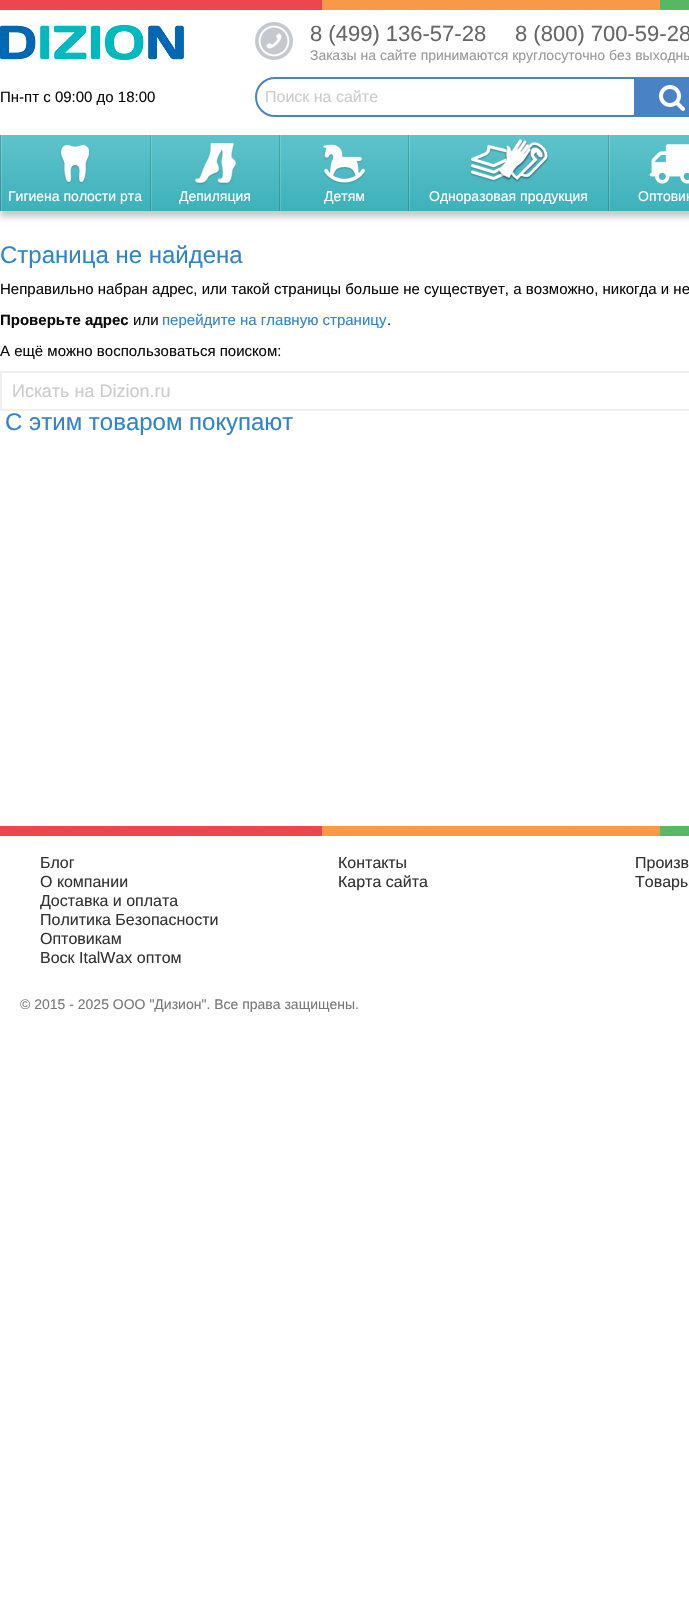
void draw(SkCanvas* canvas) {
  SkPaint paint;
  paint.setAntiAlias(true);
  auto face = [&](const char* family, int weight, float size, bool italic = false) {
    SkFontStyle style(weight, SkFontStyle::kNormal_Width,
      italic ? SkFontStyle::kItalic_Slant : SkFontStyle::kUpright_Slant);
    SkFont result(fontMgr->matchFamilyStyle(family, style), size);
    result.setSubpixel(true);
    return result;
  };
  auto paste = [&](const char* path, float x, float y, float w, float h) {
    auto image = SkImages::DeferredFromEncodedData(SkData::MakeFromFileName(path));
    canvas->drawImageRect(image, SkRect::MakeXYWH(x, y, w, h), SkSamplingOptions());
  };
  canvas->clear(0xffffffff);
  paste("img/1.png", 0, 0, 689, 10);
  paste("img/2.png", 0, 25, 184, 35);
  paste("img/3.png", 255, 22, 38, 38);
  paint.setStroke(true);
  paint.setStrokeWidth(2);
  paint.setColor(0xff4983c6);
  canvas->drawRoundRect(SkRect::MakeXYWH(256, 78, 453, 38), 19, 19, paint);
  paint.setStroke(false);
  canvas->drawRect(SkRect::MakeXYWH(634, 79, 55, 36), paint);
  paste("img/4.png", 659, 85, 26, 26);
  paint.setColor(0x36000000);
  paint.setMaskFilter(SkMaskFilter::MakeBlur(kNormal_SkBlurStyle, 3));
  canvas->drawRect(SkRect::MakeXYWH(0, 141, 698, 76), paint);
  paint.setMaskFilter(nullptr);
  {
    const SkColor colors[] = {0xff5ec3cb, 0xff3db1ba};
    const float stops[] = {0, 1};
    const SkPoint ends[] = {{595, 135}, {595, 211}};
    paint.setShader(SkGradientShader::MakeLinear(ends, colors, stops, 2, SkTileMode::kClamp));
    paint.setAlpha(255);
  }
  canvas->drawRect(SkRect::MakeXYWH(0, 135, 689, 76), paint);
  paste("img/5.png", 0, 135, 2, 76);
  paste("img/6.png", 60, 145, 30, 39);
  paste("img/5.png", 150, 135, 2, 76);
  paste("img/7.png", 194, 143, 43, 42);
  paste("img/5.png", 279, 135, 2, 76);
  paste("img/8.png", 323, 144, 43, 41);
  paste("img/5.png", 408, 135, 2, 76);
  paste("img/9.png", 470, 139, 79, 43);
  paste("img/5.png", 608, 135, 2, 76);
  paste("img/10.png", 649, 144, 40, 40);
  paint.setStroke(true);
  paint.setShader(nullptr);
  paint.setColor(0xffefefef);
  canvas->drawRect(SkRect::MakeXYWH(1, 372, 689, 38), paint);
  paste("img/1.png", 0, 826, 689, 10);
  auto f0 = face("Liberation Sans", 400, 22);
  paint.setStroke(false);
  paint.setColor(0xff666666);
  canvas->drawString("8 (499) 136-57-28", 310, 41, f0, paint);
  canvas->drawString("8 (800) 700-59-28", 515, 41, f0, paint);
  auto f1 = face("Liberation Sans", 400, 14);
  paint.setColor(0xff999999);
  canvas->drawString("Заказы на сайте принимаются круглосуточно без выходны", 310, 60, f1, paint);
  auto f2 = face("Liberation Sans", 400, 15);
  paint.setColor(0xff0c0c0c);
  canvas->drawString("Пн-пт с 09:00 до 18:00", 0, 102, f2, paint);
  auto f3 = face("Liberation Sans", 400, 16);
  paint.setColor(0xffcccccc);
  canvas->drawString("Поиск на сайте", 265, 102, f3, paint);
  paint.setColor(0xffffffff);
  {
    const struct { const char* s; float x, y; } items[] = {
      {"Гигиена полости рта", 8, 201},
      {"Депиляция", 179, 201},
      {"Детям", 324, 201},
      {"Одноразовая продукция", 429, 201},
      {"Оптовик", 638, 201},
    };
    for (auto [s, x, y] : items) {
      canvas->drawString(s, x, y, f1, paint);
    }
  }
  auto f4 = face("Liberation Sans", 400, 24);
  paint.setColor(0xff3084cc);
  canvas->drawString("Страница не найдена", 0, 263, f4, paint);
  paint.setColor(0xff0c0c0c);
  canvas->drawString("Неправильно набран адрес, или такой страницы больше не существует, а возможно, никогда и не", 0, 294, f2, paint);
  auto f5 = face("Liberation Sans", 700, 15);
  canvas->drawString("Проверьте адрес", 0, 325, f5, paint);
  canvas->drawString("или", 133, 325, f2, paint);
  paint.setColor(0xff3084cc);
  canvas->drawString("перейдите на главную страницу", 162, 325, f2, paint);
  paint.setColor(0xff0c0c0c);
  canvas->drawString(".", 387, 325, f2, paint);
  canvas->drawString("А ещё можно воспользоваться поиском:", 0, 356, f2, paint);
  auto f6 = face("Liberation Sans", 400, 18);
  paint.setColor(0xffcccccc);
  canvas->drawString("Искать на Dizion.ru", 12, 397, f6, paint);
  paint.setColor(0xff3084cc);
  canvas->drawString("С этим товаром покупают", 5, 430, f4, paint);
  paint.setColor(0xff333333);
  {
    const struct { const char* s; float x, y; } items[] = {
      {"Блог", 40, 868},
      {"О компании", 40, 887},
      {"Доставка и оплата", 40, 906},
      {"Политика Безопасности", 40, 925},
      {"Оптовикам", 40, 944},
      {"Воск ItalWax оптом", 40, 963},
      {"Контакты", 338, 868},
      {"Карта сайта", 338, 887},
      {"Произв", 635, 868},
      {"Товары", 635, 887},
    };
    for (auto [s, x, y] : items) {
      canvas->drawString(s, x, y, f3, paint);
    }
  }
  paint.setColor(0xff777777);
  canvas->drawString("© 2015 - 2025 ООО \"Дизион\". Все права защищены.", 20, 1009, f1, paint);
}
